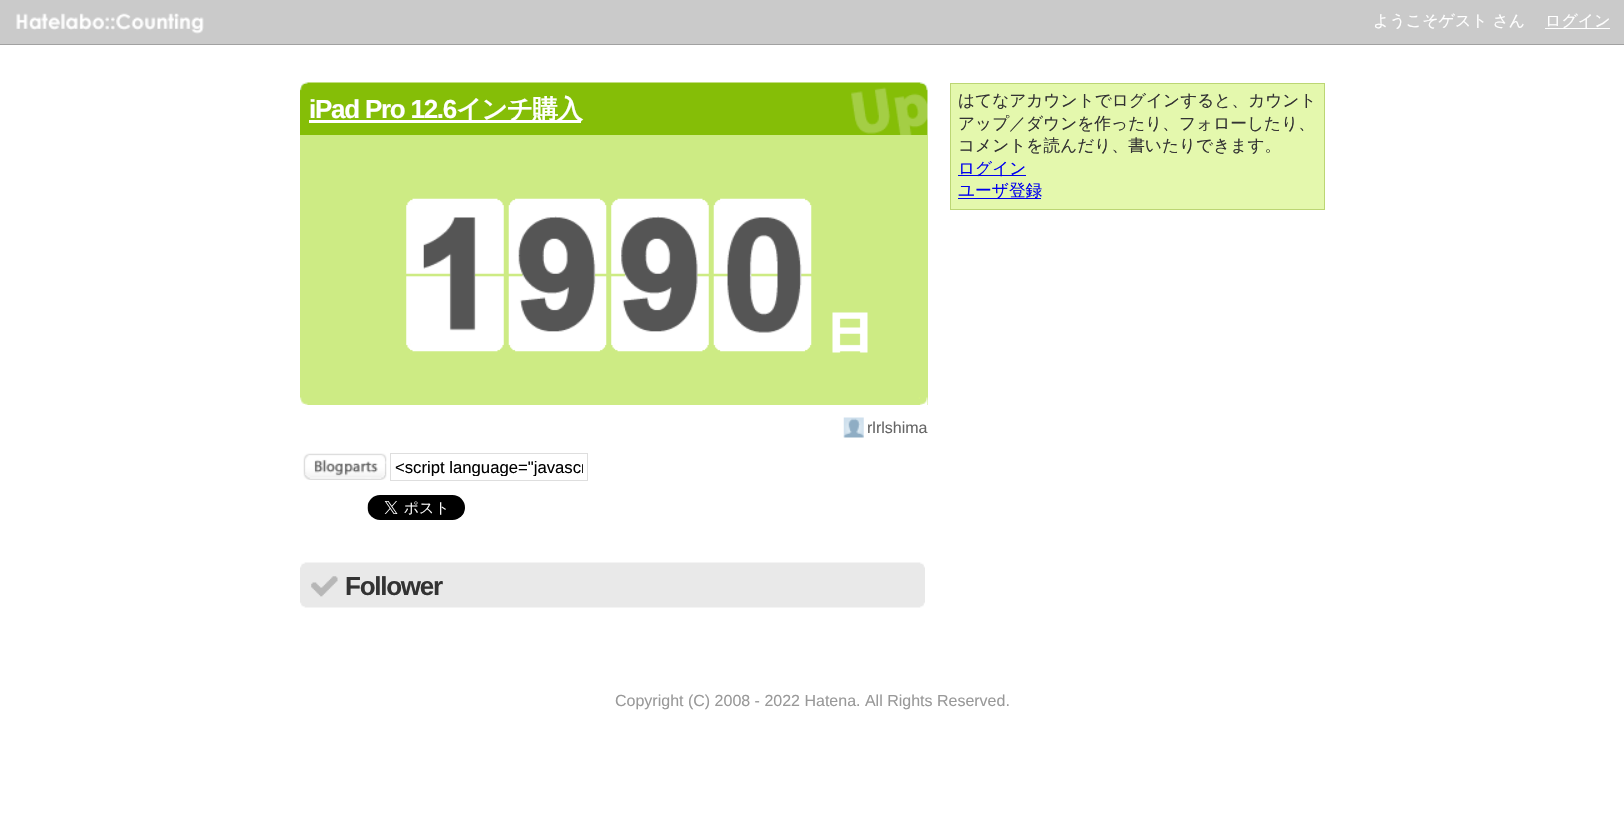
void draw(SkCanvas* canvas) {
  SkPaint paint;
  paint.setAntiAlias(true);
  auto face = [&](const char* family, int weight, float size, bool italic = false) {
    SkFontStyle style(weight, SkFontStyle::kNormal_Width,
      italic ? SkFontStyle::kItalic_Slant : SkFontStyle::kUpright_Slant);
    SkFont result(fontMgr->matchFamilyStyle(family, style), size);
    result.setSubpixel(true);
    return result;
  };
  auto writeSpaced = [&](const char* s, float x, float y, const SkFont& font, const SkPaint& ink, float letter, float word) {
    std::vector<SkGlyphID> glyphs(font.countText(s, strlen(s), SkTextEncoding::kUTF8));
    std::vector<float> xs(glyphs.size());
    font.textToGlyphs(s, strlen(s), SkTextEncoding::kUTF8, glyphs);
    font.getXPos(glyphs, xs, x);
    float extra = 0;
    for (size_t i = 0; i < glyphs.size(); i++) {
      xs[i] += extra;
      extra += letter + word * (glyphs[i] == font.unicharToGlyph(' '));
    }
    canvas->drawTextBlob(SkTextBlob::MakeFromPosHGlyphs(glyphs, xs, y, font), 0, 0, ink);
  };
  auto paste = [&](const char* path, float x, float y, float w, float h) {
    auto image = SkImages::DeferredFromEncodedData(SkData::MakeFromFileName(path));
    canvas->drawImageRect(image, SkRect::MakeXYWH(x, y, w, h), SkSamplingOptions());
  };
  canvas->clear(0xffffffff);
  paint.setColor(0xffcacaca);
  canvas->drawRect(SkRect::MakeXYWH(0, 0, 1624, 44), paint);
  paint.setColor(0xffa1a1a1);
  canvas->drawRect(SkRect::MakeXYWH(0, 44, 1624, 1), paint);
  paste("img/1.png", 16, 13, 99, 17);
  paste("img/2.png", 116, 13, 88, 21);
  paint.setColor(0xffffffff);
  canvas->drawRect(SkRect::MakeXYWH(1545, 28, 65, 1), paint);
  paste("img/3.png", 300, 82, 628, 53);
  canvas->drawRect(SkRect::MakeXYWH(309, 120, 272, 3), paint);
  paint.setColor(0xffcdeb84);
  canvas->drawRect(SkRect::MakeXYWH(300, 135, 628, 270), paint);
  paste("img/4.png", 832, 312, 36, 41);
  paste("img/5.png", 406, 198, 98, 154);
  paste("img/6.png", 508, 198, 99, 154);
  paste("img/7.png", 611, 198, 98, 154);
  paste("img/8.png", 713, 198, 99, 154);
  paste("img/9.png", 300, 397, 628, 8);
  paste("img/10.png", 843, 417, 21, 21);
  paste("img/11.png", 303, 453, 84, 27);
  paint.setStroke(true);
  paint.setStrokeWidth(1);
  paint.setColor(0xffdedede);
  canvas->drawRect(SkRect::MakeXYWH(390.5f, 453.5f, 197, 27), paint);
  paste("img/12.png", 367, 495, 98, 25);
  paste("img/13.png", 300, 562, 625, 46);
  paste("img/14.png", 311, 576, 27, 21);
  paint.setStroke(false);
  paint.setColor(0xffe4f8ad);
  canvas->drawRect(SkRect::MakeXYWH(950.5f, 83.5f, 374, 126), paint);
  paint.setStroke(true);
  paint.setColor(0xffbcd674);
  canvas->drawRect(SkRect::MakeXYWH(950.5f, 83.5f, 374, 126), paint);
  paint.setStroke(false);
  paint.setColor(0xff0000ee);
  canvas->drawRect(SkRect::MakeXYWH(958, 175, 68, 1), paint);
  canvas->drawRect(SkRect::MakeXYWH(958, 198, 83, 1), paint);
  auto f0 = face("WenQuanYi Zen Hei", 500, 16);
  paint.setColor(0xffffffff);
  canvas->drawString("ようこそゲスト さん", 1373, 26, f0, paint);
  canvas->drawString("ログイン", 1545, 26, f0, paint);
  auto f1 = face("Liberation Sans", 700, 26);
  writeSpaced("iPad Pro 12.6", 309, 118, f1, paint, -1.25f, 0);
  auto f2 = face("WenQuanYi Zen Hei", 700, 26);
  writeSpaced("インチ購入", 456, 118, f2, paint, -1.25f, 0);
  auto f3 = face("Liberation Sans", 400, 16);
  paint.setColor(0xff666666);
  canvas->drawString("rlrlshima", 867, 433, f3, paint);
  canvas->save();
  canvas->clipRect(SkRect::MakeXYWH(395, 458, 188, 18));
  auto f4 = face("Liberation Sans", 400, 16.7f);
  paint.setColor(0xff000000);
  canvas->drawString("<script language=\"javascr", 395, 473, f4, paint);
  canvas->restore();
  paint.setColor(0xff333333);
  writeSpaced("Follower", 345, 595, f1, paint, -1.25f, 0);
  auto f5 = face("WenQuanYi Zen Hei", 500, 16.7f);
  {
    const struct { const char* s; float x, y; } items[] = {
      {"はてなアカウントでログインすると、カウント", 958, 106},
      {"アップ／ダウンを作ったり、フォローしたり、", 958, 129},
      {"コメントを読んだり、書いたりできます。", 958, 151},
    };
    for (auto [s, x, y] : items) {
      canvas->drawString(s, x, y, f5, paint);
    }
  }
  paint.setColor(0xff0000ee);
  canvas->drawString("ログイン", 958, 174, f5, paint);
  canvas->drawString("ユーザ登録", 958, 196, f5, paint);
  paint.setColor(0xff999999);
  canvas->drawString("Copyright (C) 2008 - 2022 Hatena. All Rights Reserved.", 615, 706, f3, paint);
}
